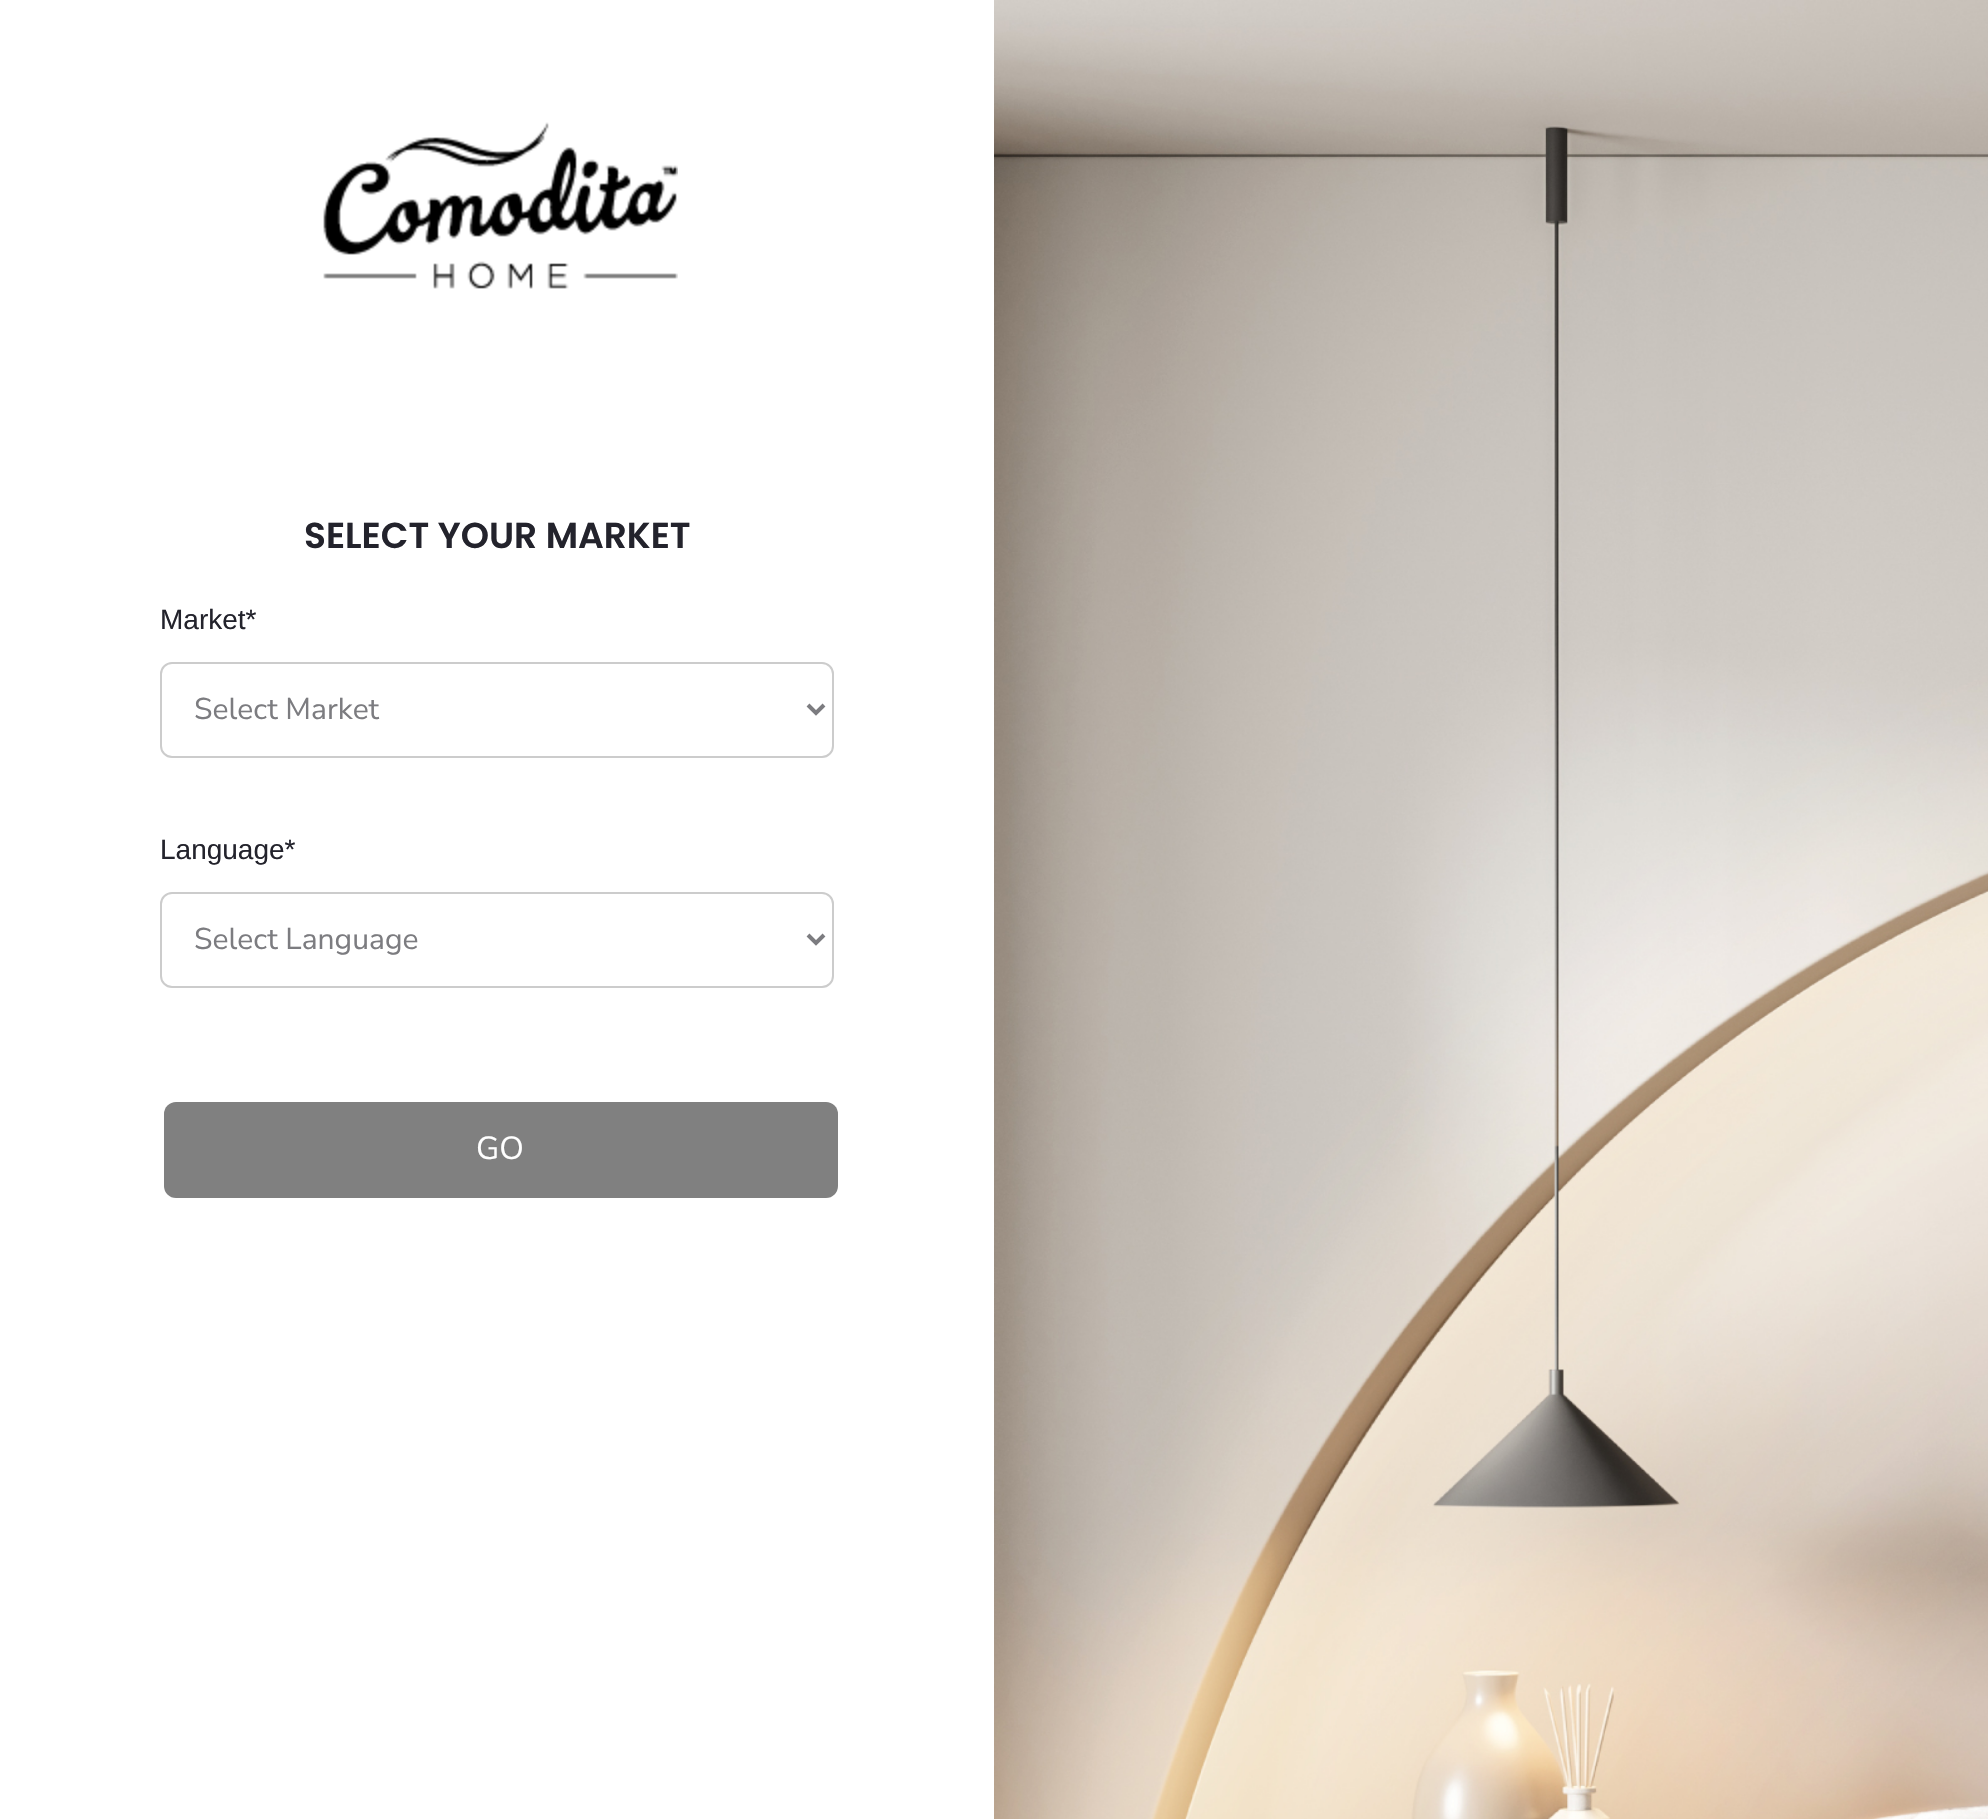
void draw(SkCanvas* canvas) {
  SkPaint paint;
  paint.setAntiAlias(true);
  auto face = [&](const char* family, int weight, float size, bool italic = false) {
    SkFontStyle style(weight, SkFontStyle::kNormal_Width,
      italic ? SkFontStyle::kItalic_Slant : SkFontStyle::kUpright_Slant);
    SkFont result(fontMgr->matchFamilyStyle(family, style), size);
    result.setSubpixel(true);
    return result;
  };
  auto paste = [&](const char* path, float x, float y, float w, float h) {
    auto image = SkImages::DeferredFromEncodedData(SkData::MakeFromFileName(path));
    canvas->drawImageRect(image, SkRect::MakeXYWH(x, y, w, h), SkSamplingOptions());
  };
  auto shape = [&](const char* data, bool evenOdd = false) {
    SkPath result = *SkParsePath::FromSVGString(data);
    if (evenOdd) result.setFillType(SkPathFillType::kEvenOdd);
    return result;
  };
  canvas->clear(0xffffffff);
  paste("img/1.png", 323, 122, 355, 167);
  paint.setStroke(true);
  paint.setStrokeWidth(2);
  paint.setColor(0xffcccccc);
  canvas->drawRoundRect(SkRect::MakeXYWH(161, 663, 672, 94), 11, 11, paint);
  paint.setStrokeWidth(4);
  paint.setColor(0xff7c7c80);
  canvas->drawPath(shape("M808 705L816 713L824 705"), paint);
  paint.setStrokeWidth(2);
  paint.setColor(0xffcccccc);
  canvas->drawRoundRect(SkRect::MakeXYWH(161, 893, 672, 94), 11, 11, paint);
  paint.setStrokeWidth(4);
  paint.setColor(0xff7c7c80);
  canvas->drawPath(shape("M808 935L816 943L824 935"), paint);
  paint.setStroke(false);
  paint.setColor(0xff808080);
  canvas->drawRoundRect(SkRect::MakeXYWH(164, 1102, 674, 96), 12, 12, paint);
  paste("img/2.png", 994, 0, 994, 1819);
  auto f0 = face("Poppins", 600, 36);
  paint.setColor(0xff23232c);
  canvas->drawString("SELECT YOUR MARKET", 304, 548, f0, paint);
  auto f1 = face("Liberation Sans", 400, 28);
  canvas->drawString("Market*", 160, 629, f1, paint);
  auto f2 = face("Nunito Sans", 400, 30);
  paint.setColor(0xff7c7c80);
  canvas->drawString("Select Market", 194, 719, f2, paint);
  paint.setColor(0xff23232c);
  canvas->drawString("Language*", 160, 859, f1, paint);
  paint.setColor(0xff7c7c80);
  canvas->drawString("Select Language", 194, 949, f2, paint);
  auto f3 = face("Nunito Sans", 400, 32);
  paint.setColor(0xffffffff);
  canvas->drawString("GO", 476, 1159, f3, paint);
}
